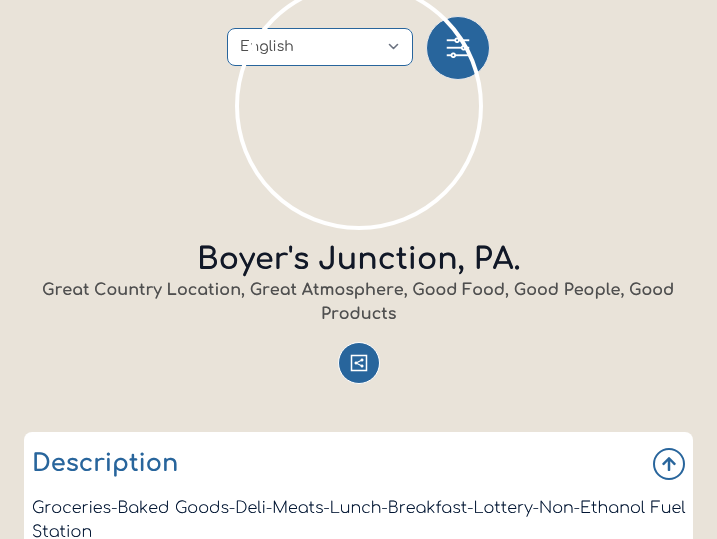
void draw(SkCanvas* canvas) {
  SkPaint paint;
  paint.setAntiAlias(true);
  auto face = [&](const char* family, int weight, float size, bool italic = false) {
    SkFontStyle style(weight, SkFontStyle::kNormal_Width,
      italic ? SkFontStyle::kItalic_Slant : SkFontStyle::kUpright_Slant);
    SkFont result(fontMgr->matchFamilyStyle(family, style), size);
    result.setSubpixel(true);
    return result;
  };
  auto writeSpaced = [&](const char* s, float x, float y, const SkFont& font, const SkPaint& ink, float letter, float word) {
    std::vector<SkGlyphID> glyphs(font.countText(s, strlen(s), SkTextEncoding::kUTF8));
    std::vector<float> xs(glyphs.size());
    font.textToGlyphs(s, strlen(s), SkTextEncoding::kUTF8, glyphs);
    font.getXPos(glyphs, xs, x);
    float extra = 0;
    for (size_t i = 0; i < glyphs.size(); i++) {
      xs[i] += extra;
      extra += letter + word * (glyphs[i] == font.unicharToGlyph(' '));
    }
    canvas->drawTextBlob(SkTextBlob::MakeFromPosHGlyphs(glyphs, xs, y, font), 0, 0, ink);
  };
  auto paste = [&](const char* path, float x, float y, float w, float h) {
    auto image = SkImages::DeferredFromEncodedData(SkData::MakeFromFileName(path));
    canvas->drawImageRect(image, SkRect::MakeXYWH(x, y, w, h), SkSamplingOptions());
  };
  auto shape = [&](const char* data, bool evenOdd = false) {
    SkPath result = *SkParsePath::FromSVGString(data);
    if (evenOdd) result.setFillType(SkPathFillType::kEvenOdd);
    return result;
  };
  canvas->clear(0xffe9e3d9);
  paint.setColor(0xffffffff);
  canvas->drawRoundRect(SkRect::MakeXYWH(227, 28, 186, 38), 8, 8, paint);
  paint.setStroke(true);
  paint.setStrokeWidth(1.6f);
  paint.setStrokeCap(SkPaint::kRound_Cap);
  paint.setStrokeJoin(SkPaint::kRound_Join);
  paint.setColor(0xff6b7280);
  canvas->drawPath(shape("M389.5 44.5L393.5 48.5L397.5 44.5"), paint);
  paint.setStrokeWidth(1);
  paint.setStrokeCap(SkPaint::kButt_Cap);
  paint.setStrokeJoin(SkPaint::kMiter_Join);
  paint.setColor(0xff28659c);
  canvas->drawRoundRect(SkRect::MakeXYWH(227.5f, 28.5f, 185, 37), 7.5f, 7.5f, paint);
  paint.setStroke(false);
  canvas->drawCircle(458, 48, 31.5f, paint);
  paint.setStroke(true);
  paint.setColor(0xffe5e7eb);
  canvas->drawCircle(458, 48, 31.5f, paint);
  paste("img/1.png", 446, 37, 24, 22);
  paint.setStroke(false);
  paint.setColor(0xff28659c);
  canvas->drawCircle(359, 363, 20.5f, paint);
  paint.setStroke(true);
  paint.setColor(0xffffffff);
  canvas->drawCircle(359, 363, 20.5f, paint);
  paste("img/2.png", 350, 354, 18, 18);
  paint.setStroke(false);
  canvas->drawRoundRect(SkRect::MakeXYWH(24, 432, 669, 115), 8, 8, paint);
  paint.setStroke(true);
  paint.setStrokeWidth(2);
  paint.setColor(0xff28659c);
  canvas->drawCircle(669, 464, 15, paint);
  paste("img/3.png", 662, 457, 14, 14);
  auto f0 = face("Comfortaa", 400, 14);
  paint.setStroke(false);
  paint.setColor(0xff4f4f4f);
  canvas->drawString("English", 240, 51, f0, paint);
  paint.setStroke(true);
  paint.setStrokeWidth(4);
  paint.setColor(0xffffffff);
  canvas->drawCircle(359, 106, 122, paint);
  auto f1 = face("Comfortaa", 700, 30);
  paint.setStroke(false);
  paint.setColor(0xff111827);
  canvas->drawString("Boyer's Junction, PA.", 197, 269, f1, paint);
  auto f2 = face("Comfortaa", 700, 16);
  paint.setColor(0xff4f4f4f);
  canvas->drawString("Great Country Location, Great Atmosphere, Good Food, Good People, Good", 42, 295, f2, paint);
  canvas->drawString("Products", 321, 319, f2, paint);
  auto f3 = face("Comfortaa", 700, 24);
  paint.setColor(0xff28659c);
  canvas->drawString("Description", 32, 471, f3, paint);
  auto f4 = face("Comfortaa", 300, 16);
  paint.setColor(0xff021633);
  writeSpaced("Groceries-Baked Goods-Deli-Meats-Lunch-Breakfast-Lottery-Non-Ethanol Fuel", 32, 513, f4, paint, 0, 1);
  canvas->drawString("Station", 32, 537, f4, paint);
}
